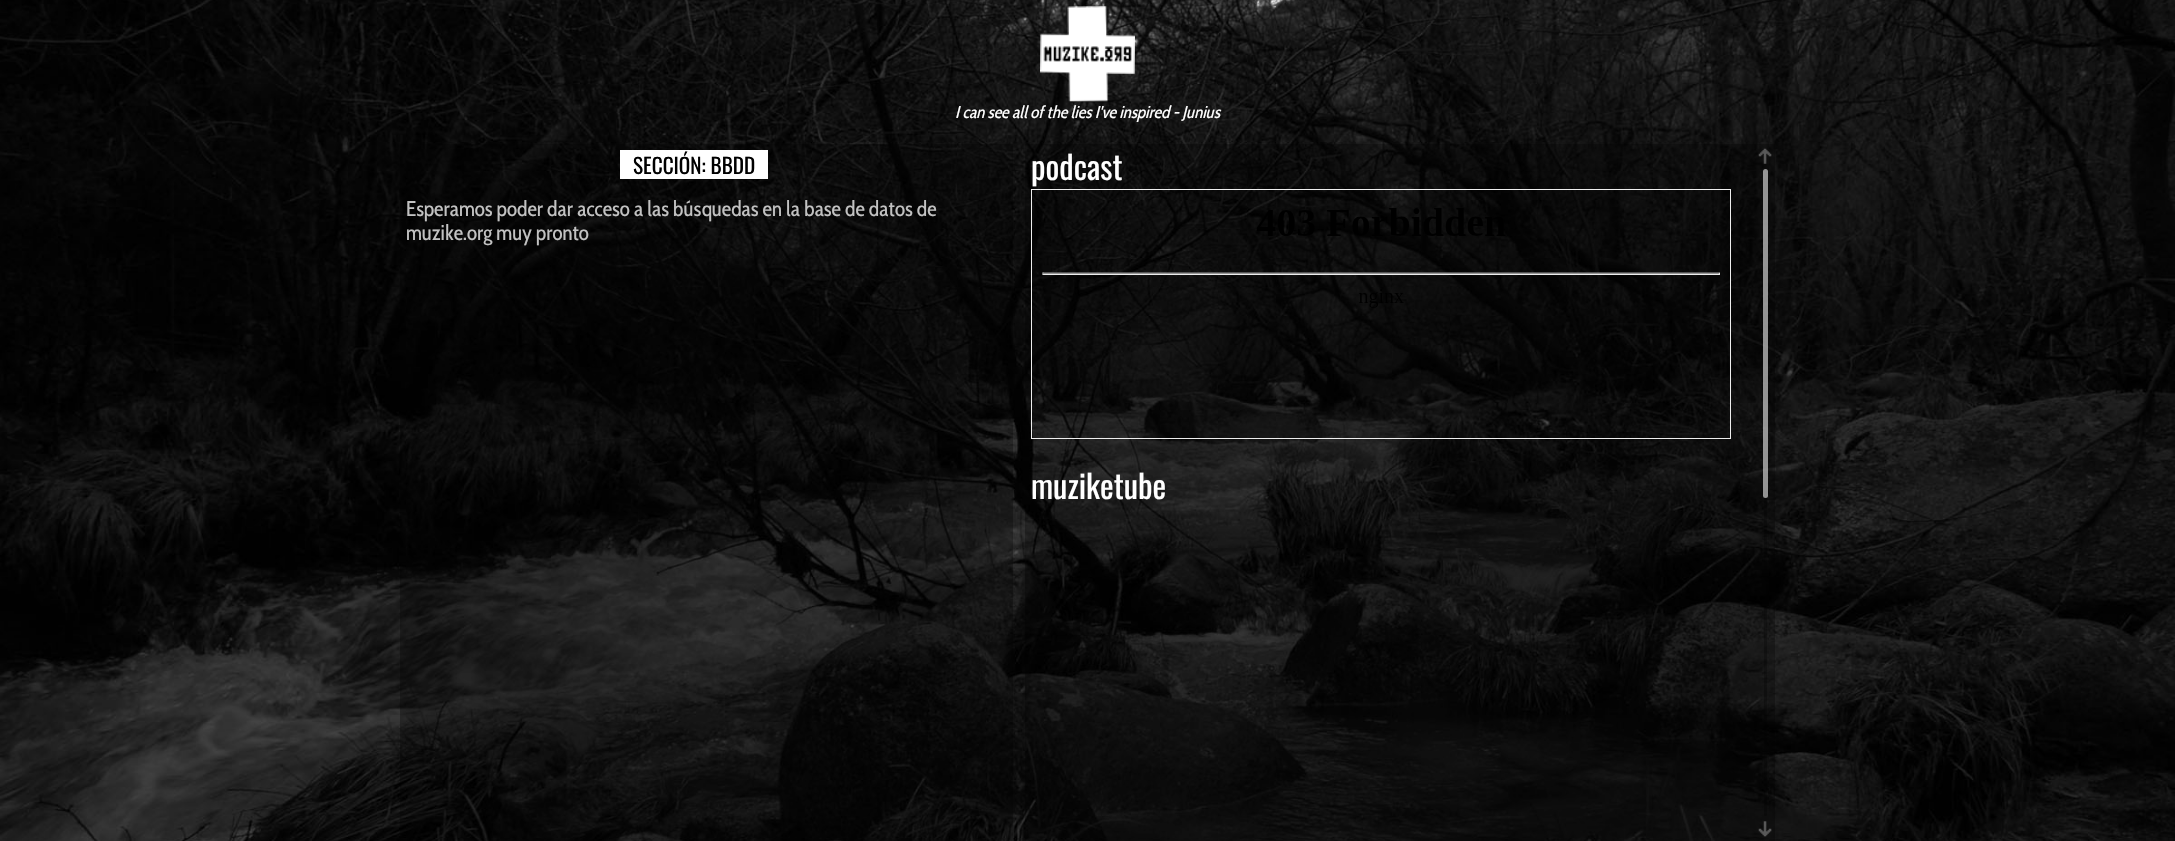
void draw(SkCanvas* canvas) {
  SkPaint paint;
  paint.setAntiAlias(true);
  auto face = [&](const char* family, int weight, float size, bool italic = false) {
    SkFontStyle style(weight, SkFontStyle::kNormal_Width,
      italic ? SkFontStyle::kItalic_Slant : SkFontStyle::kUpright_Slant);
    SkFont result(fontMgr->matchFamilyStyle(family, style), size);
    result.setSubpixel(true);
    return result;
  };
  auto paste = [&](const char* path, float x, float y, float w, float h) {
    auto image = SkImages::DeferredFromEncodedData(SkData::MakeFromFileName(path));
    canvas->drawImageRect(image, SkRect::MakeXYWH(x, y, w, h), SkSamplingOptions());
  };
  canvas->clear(0xffffffff);
  paste("img/1.png", 0, 0, 2175, 841);
  paste("img/2.png", 1040, 6, 95, 96);
  {
    const struct { float x, y, w, h; SkColor color; } items[] = {
      {400, 144, 613, 697, 0x4d000000},
      {620, 150, 148, 29, 0xffffffff},
      {1025, 144, 750, 697, 0x4d000000},
    };
    for (auto [x, y, w, h, color] : items) {
      paint.setColor(color);
      canvas->drawRect(SkRect::MakeXYWH(x, y, w, h), paint);
    }
  }
  paint.setStroke(true);
  paint.setStrokeWidth(1);
  paint.setColor(0xffeeeeee);
  canvas->drawRect(SkRect::MakeXYWH(1031.5f, 189.5f, 699, 249), paint);
  paste("img/3.png", 1042, 208, 678, 100);
  paste("img/4.png", 1758, 148, 14, 16);
  paint.setStroke(false);
  paint.setColor(0x4d000000);
  canvas->drawRoundRect(SkRect::MakeXYWH(1764, 169, 3, 647), 1.5f, 1.5f, paint);
  paint.setColor(0x8fffffff);
  canvas->drawRoundRect(SkRect::MakeXYWH(1763, 169, 5, 329), 2.5f, 2.5f, paint);
  paste("img/5.png", 1758, 821, 14, 16);
  auto f0 = face("Cabin Condensed", 400, 17, true);
  paint.setColor(0xffffffff);
  canvas->drawString("I can see all of the lies I've inspired - Junius", 955, 118, f0, paint);
  auto f1 = face("Oswald", 400, 21.25f);
  paint.setColor(0xff000000);
  canvas->drawString("SECCIÓN: BBDD", 633, 174, f1, paint);
  auto f2 = face("Cabin Condensed", 400, 21.25f);
  paint.setColor(0xffc2c2c2);
  canvas->drawString("Esperamos poder dar acceso a las búsquedas en la base de datos de", 406, 216, f2, paint);
  canvas->drawString("muzike.org muy pronto", 406, 240, f2, paint);
  auto f3 = face("Oswald", 400, 32.5f);
  paint.setColor(0xffffffff);
  canvas->drawString("podcast", 1031, 180, f3, paint);
  canvas->drawString("muziketube", 1031, 499, f3, paint);
}
